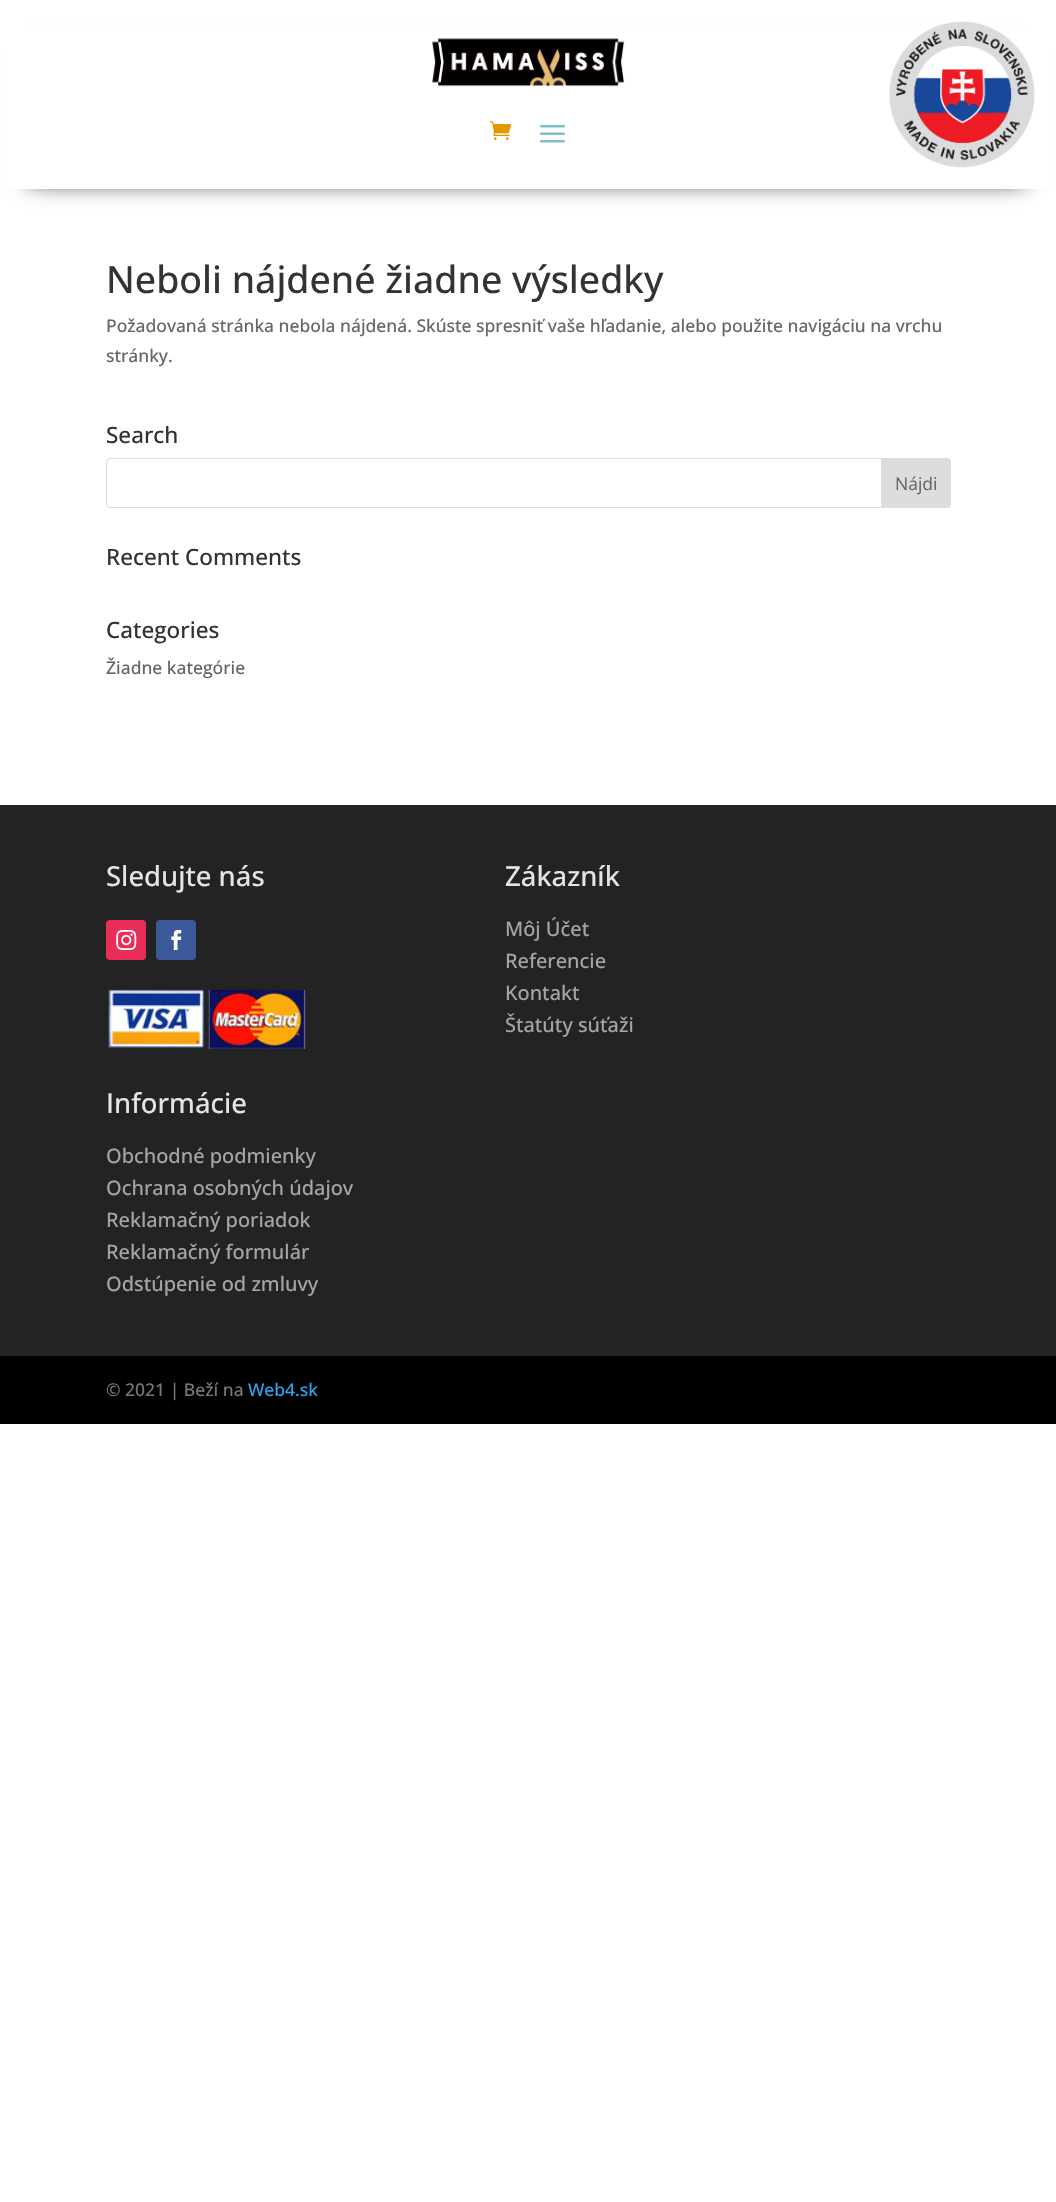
void draw(SkCanvas* canvas) {
  SkPaint paint;
  paint.setAntiAlias(true);
  auto face = [&](const char* family, int weight, float size, bool italic = false) {
    SkFontStyle style(weight, SkFontStyle::kNormal_Width,
      italic ? SkFontStyle::kItalic_Slant : SkFontStyle::kUpright_Slant);
    SkFont result(fontMgr->matchFamilyStyle(family, style), size);
    result.setSubpixel(true);
    return result;
  };
  auto paste = [&](const char* path, float x, float y, float w, float h) {
    auto image = SkImages::DeferredFromEncodedData(SkData::MakeFromFileName(path));
    canvas->drawImageRect(image, SkRect::MakeXYWH(x, y, w, h), SkSamplingOptions());
  };
  auto shape = [&](const char* data, bool evenOdd = false) {
    SkPath result = *SkParsePath::FromSVGString(data);
    if (evenOdd) result.setFillType(SkPathFillType::kEvenOdd);
    return result;
  };
  canvas->clear(0xffffffff);
  paint.setColor(0xff000000);
  paint.setMaskFilter(SkMaskFilter::MakeBlur(kNormal_SkBlurStyle, 11));
  canvas->drawRect(SkRect::MakeXYWH(29, 53, 996, 128), paint);
  paint.setMaskFilter(nullptr);
  paint.setColor(0xffffffff);
  canvas->drawRect(SkRect::MakeXYWH(3, 27, 1048, 162), paint);
  paste("img/1.png", 889, 21, 146, 147);
  paste("img/2.png", 432, 38, 193, 49);
  paste("img/3.png", 490, 121, 22, 19);
  paste("img/4.png", 540, 124, 25, 19);
  paint.setStroke(true);
  paint.setStrokeWidth(1);
  paint.setColor(0xffdddddd);
  canvas->drawRoundRect(SkRect::MakeXYWH(106.5f, 458.5f, 844, 49), 3.5f, 3.5f, paint);
  paint.setStroke(false);
  canvas->drawPath(shape("M881.5 458.5H947C949 458.5 950.5 460 950.5 462V504C950.5 506 949 507.5 947 507.5H881.5Z"), paint);
  paint.setStroke(true);
  canvas->drawPath(shape("M881.5 458.5H947C949 458.5 950.5 460 950.5 462V504C950.5 506 949 507.5 947 507.5H881.5Z"), paint);
  paint.setStroke(false);
  paint.setColor(0xff232323);
  canvas->drawRect(SkRect::MakeXYWH(0, 805, 1056, 551), paint);
  paint.setColor(0xffea2c59);
  canvas->drawRoundRect(SkRect::MakeXYWH(106, 920, 40, 40), 4, 4, paint);
  paste("img/5.png", 116, 930, 21, 20);
  paint.setColor(0xff3b5998);
  canvas->drawRoundRect(SkRect::MakeXYWH(156, 920, 40, 40), 4, 4, paint);
  paste("img/6.png", 171, 930, 11, 20);
  paste("img/7.png", 108, 989, 198, 60);
  paint.setColor(0xff000000);
  canvas->drawRect(SkRect::MakeXYWH(0, 1356, 1056, 68), paint);
  auto f0 = face("Open Sans", 500, 37.5f);
  paint.setColor(0xff333333);
  canvas->drawString("Neboli nájdené žiadne výsledky", 106, 293, f0, paint);
  auto f1 = face("Open Sans", 500, 17.5f);
  paint.setColor(0xff666666);
  canvas->drawString("Požadovaná stránka nebola nájdená. Skúste spresniť vaše hľadanie, alebo použite navigáciu na vrchu", 106, 332, f1, paint);
  canvas->drawString("stránky.", 106, 362, f1, paint);
  auto f2 = face("Open Sans", 500, 22.5f);
  paint.setColor(0xff333333);
  canvas->drawString("Search", 106, 443, f2, paint);
  auto f3 = face("Open Sans", 400, 17.5f);
  paint.setColor(0xff666666);
  canvas->drawString("Nájdi", 895, 490, f3, paint);
  paint.setColor(0xff333333);
  canvas->drawString("Recent Comments", 106, 565, f2, paint);
  canvas->drawString("Categories", 106, 638, f2, paint);
  paint.setColor(0xff666666);
  canvas->drawString("Žiadne kategórie", 106, 674, f1, paint);
  auto f4 = face("Open Sans", 500, 27.5f);
  paint.setColor(0xffe5e5e5);
  canvas->drawString("Sledujte nás", 106, 886, f4, paint);
  canvas->drawString("Zákazník", 505, 886, f4, paint);
  auto f5 = face("Open Sans", 500, 20);
  paint.setColor(0xffa5a5a5);
  {
    const struct { const char* s; float x, y; } items[] = {
      {"Môj Účet", 505, 936},
      {"Referencie", 505, 968},
      {"Kontakt", 505, 1000},
      {"Štatúty súťaži", 505, 1032},
    };
    for (auto [s, x, y] : items) {
      canvas->drawString(s, x, y, f5, paint);
    }
  }
  paint.setColor(0xffe5e5e5);
  canvas->drawString("Informácie", 106, 1113, f4, paint);
  paint.setColor(0xffa5a5a5);
  {
    const struct { const char* s; float x, y; } items[] = {
      {"Obchodné podmienky", 106, 1163},
      {"Ochrana osobných údajov", 106, 1195},
      {"Reklamačný poriadok", 106, 1227},
      {"Reklamačný formulár", 106, 1259},
      {"Odstúpenie od zmluvy", 106, 1291},
    };
    for (auto [s, x, y] : items) {
      canvas->drawString(s, x, y, f5, paint);
    }
  }
  paint.setColor(0xff777777);
  canvas->drawString("© 2021 | Beží na", 106, 1396, f1, paint);
  paint.setColor(0xff2ea3f2);
  canvas->drawString("Web4.sk", 248, 1396, f1, paint);
}
